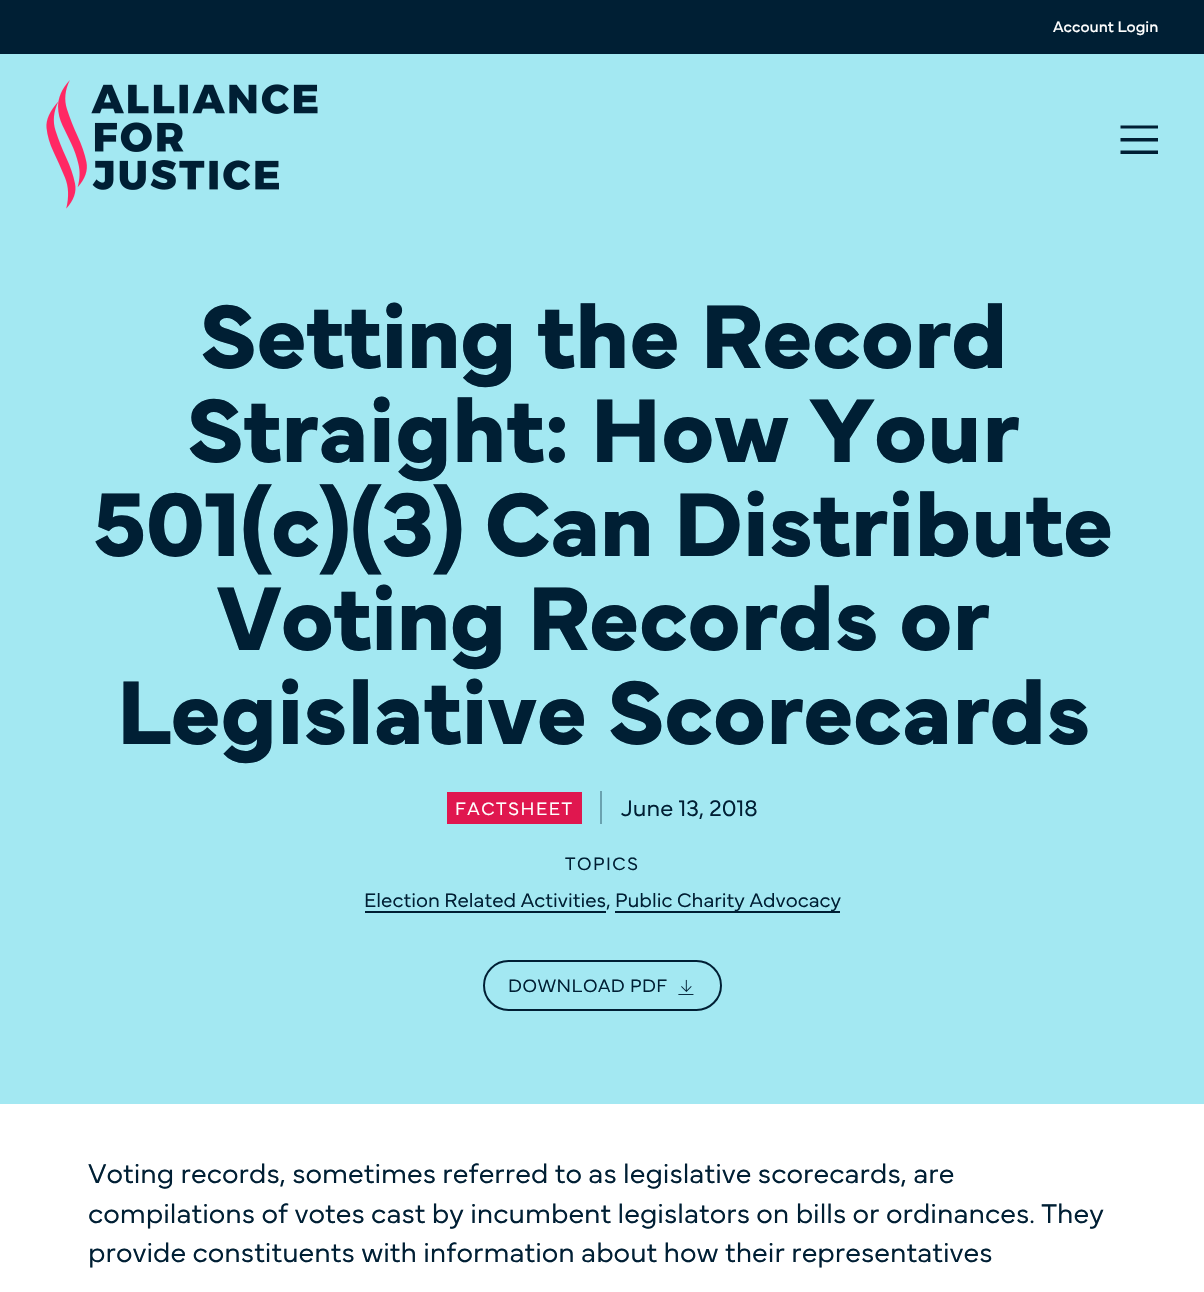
void draw(SkCanvas* canvas) {
  SkPaint paint;
  paint.setAntiAlias(true);
  auto face = [&](const char* family, int weight, float size, bool italic = false) {
    SkFontStyle style(weight, SkFontStyle::kNormal_Width,
      italic ? SkFontStyle::kItalic_Slant : SkFontStyle::kUpright_Slant);
    SkFont result(fontMgr->matchFamilyStyle(family, style), size);
    result.setSubpixel(true);
    return result;
  };
  auto writeSpaced = [&](const char* s, float x, float y, const SkFont& font, const SkPaint& ink, float letter, float word) {
    std::vector<SkGlyphID> glyphs(font.countText(s, strlen(s), SkTextEncoding::kUTF8));
    std::vector<float> xs(glyphs.size());
    font.textToGlyphs(s, strlen(s), SkTextEncoding::kUTF8, glyphs);
    font.getXPos(glyphs, xs, x);
    float extra = 0;
    for (size_t i = 0; i < glyphs.size(); i++) {
      xs[i] += extra;
      extra += letter + word * (glyphs[i] == font.unicharToGlyph(' '));
    }
    canvas->drawTextBlob(SkTextBlob::MakeFromPosHGlyphs(glyphs, xs, y, font), 0, 0, ink);
  };
  auto paste = [&](const char* path, float x, float y, float w, float h) {
    auto image = SkImages::DeferredFromEncodedData(SkData::MakeFromFileName(path));
    canvas->drawImageRect(image, SkRect::MakeXYWH(x, y, w, h), SkSamplingOptions());
  };
  auto shape = [&](const char* data, bool evenOdd = false) {
    SkPath result = *SkParsePath::FromSVGString(data);
    if (evenOdd) result.setFillType(SkPathFillType::kEvenOdd);
    return result;
  };
  canvas->clear(0xffffffff);
  paint.setColor(0xff001f34);
  canvas->drawRect(SkRect::MakeXYWH(0, 0, 1204, 54), paint);
  paint.setColor(0xffa3e8f2);
  canvas->drawRect(SkRect::MakeXYWH(0, 54, 1204, 1050), paint);
  paste("img/1.png", 46, 80, 41, 129);
  paste("img/2.png", 91, 84, 227, 106);
  paint.setColor(0xff001f34);
  canvas->drawPath(shape("M1158 125.5V128.5H1120.5V125.5ZM1120.5 141.5H1158V138H1120.5ZM1120.5 154H1158V150.5H1120.5Z"), paint);
  {
    const struct { float x, y, w, h; SkColor color; } items[] = {
      {447, 792, 135, 32, 0xffe0174f},
      {600, 791, 2, 33, 0xff6aa2af},
      {365, 911, 241, 2, 0xff001f34},
      {615, 911, 225, 2, 0xff001f34},
    };
    for (auto [x, y, w, h, color] : items) {
      paint.setColor(color);
      canvas->drawRect(SkRect::MakeXYWH(x, y, w, h), paint);
    }
  }
  paint.setStroke(true);
  paint.setStrokeWidth(2);
  canvas->drawRoundRect(SkRect::MakeXYWH(484, 961, 237, 49), 24.5f, 24.5f, paint);
  paste("img/3.png", 678, 979, 16, 16);
  auto f0 = face("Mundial", 400, 15.75f);
  paint.setStroke(false);
  paint.setColor(0xffffffff);
  canvas->drawString("Account Login", 1053, 32, f0, paint);
  auto f1 = face("Mundial", 700, 94.1f);
  paint.setColor(0xff001f34);
  {
    const struct { const char* s; float x, y; } items[] = {
      {"Setting the Record", 199, 368},
      {"Straight: How Your", 186, 462},
      {"501(c)(3) Can Distribute", 93, 556},
      {"Voting Records or", 217, 650},
      {"Legislative Scorecards", 116, 744},
    };
    for (auto [s, x, y] : items) {
      writeSpaced(s, x, y, f1, paint, -0.9f, 0);
    }
  }
  auto f2 = face("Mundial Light", 300, 18.75f);
  paint.setColor(0xffffffff);
  writeSpaced("FACTSHEET", 455, 815, f2, paint, 1.5f, 0);
  auto f3 = face("Mundial Light", 300, 23.5f);
  paint.setColor(0xff001f34);
  canvas->drawString("June 13, 2018", 621, 816, f3, paint);
  writeSpaced("TOPICS", 565, 870, f2, paint, 1.5f, 0);
  auto f4 = face("Mundial Light", 300, 20.4f);
  canvas->drawString("Election Related Activities,", 364, 907, f4, paint);
  canvas->drawString("Public Charity Advocacy", 615, 907, f4, paint);
  writeSpaced("DOWNLOAD PDF", 508, 992, f2, paint, 0.5f, 0);
  auto f5 = face("Mundial Light", 300, 28.25f);
  {
    const struct { const char* s; float x, y; } items[] = {
      {"Voting records, sometimes referred to as legislative scorecards, are", 88, 1183},
      {"compilations of votes cast by incumbent legislators on bills or ordinances. They", 88, 1223},
      {"provide constituents with information about how their representatives", 88, 1262},
    };
    for (auto [s, x, y] : items) {
      canvas->drawString(s, x, y, f5, paint);
    }
  }
}
